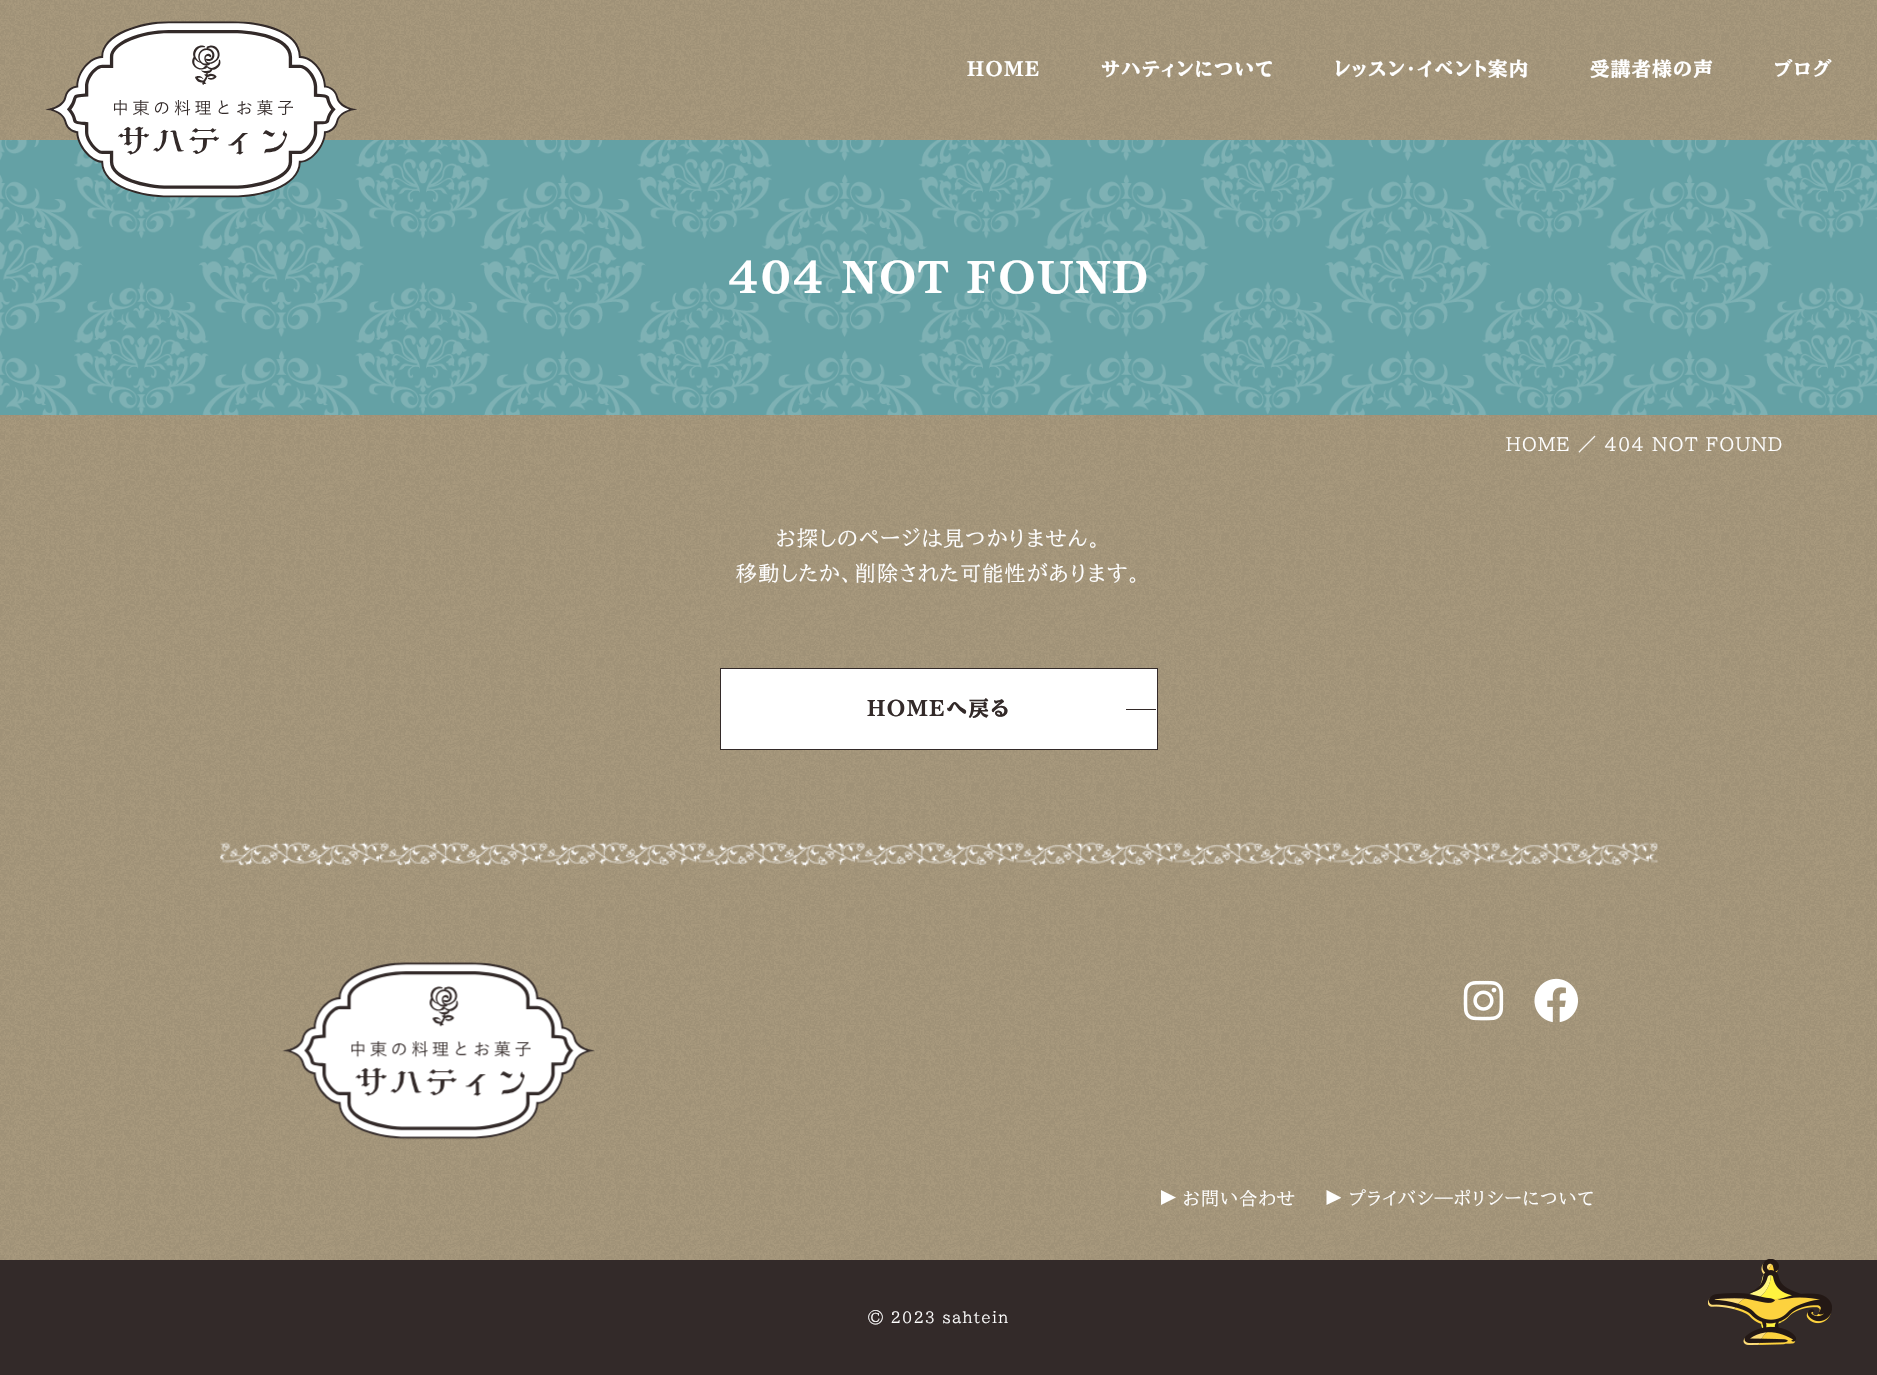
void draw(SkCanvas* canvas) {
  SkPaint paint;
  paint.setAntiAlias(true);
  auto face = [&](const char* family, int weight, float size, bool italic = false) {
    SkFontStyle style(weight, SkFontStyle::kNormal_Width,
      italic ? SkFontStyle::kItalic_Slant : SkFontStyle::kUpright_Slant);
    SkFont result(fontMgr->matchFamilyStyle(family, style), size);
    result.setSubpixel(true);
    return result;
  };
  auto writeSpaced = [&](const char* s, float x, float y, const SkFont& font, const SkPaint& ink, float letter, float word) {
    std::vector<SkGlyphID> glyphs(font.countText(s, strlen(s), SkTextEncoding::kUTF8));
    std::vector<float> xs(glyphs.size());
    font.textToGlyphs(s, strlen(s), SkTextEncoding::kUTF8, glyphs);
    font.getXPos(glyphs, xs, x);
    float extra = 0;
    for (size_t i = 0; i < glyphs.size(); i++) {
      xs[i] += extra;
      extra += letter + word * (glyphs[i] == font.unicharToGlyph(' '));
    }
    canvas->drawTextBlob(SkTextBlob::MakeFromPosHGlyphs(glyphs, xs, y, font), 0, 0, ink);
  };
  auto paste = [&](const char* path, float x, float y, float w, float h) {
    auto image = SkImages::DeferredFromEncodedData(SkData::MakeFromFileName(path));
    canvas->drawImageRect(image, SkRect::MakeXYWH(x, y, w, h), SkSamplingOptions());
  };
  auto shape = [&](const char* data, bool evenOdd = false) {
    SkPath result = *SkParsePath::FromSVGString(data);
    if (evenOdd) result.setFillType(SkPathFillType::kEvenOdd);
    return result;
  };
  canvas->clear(0xffa8997d);
  paste("img/1.png", 0, 0, 1877, 1260);
  paste("img/3.png", 0, 140, 1877, 275);
  paste("img/2.png", 45, 21, 312, 177);
  paint.setColor(0xffffffff);
  canvas->drawRect(SkRect::MakeXYWH(720.5f, 668.5f, 437, 81), paint);
  paint.setStroke(true);
  paint.setStrokeWidth(1);
  paint.setColor(0xff332a29);
  canvas->drawRect(SkRect::MakeXYWH(720.5f, 668.5f, 437, 81), paint);
  paint.setStroke(false);
  canvas->drawRect(SkRect::MakeXYWH(1126, 709, 30, 1), paint);
  paste("img/4.png", 220, 842, 1438, 25);
  paste("img/5.png", 282, 962, 313, 178);
  paste("img/6.png", 1463, 980, 41, 41);
  paste("img/7.png", 1534, 978, 44, 45);
  paint.setColor(0xffffffff);
  canvas->drawPath(shape("M1161 1205V1190L1176 1197.5Z"), paint);
  canvas->drawPath(shape("M1326.5 1190L1341 1197.5V1198L1326.5 1205Z"), paint);
  paint.setColor(0xff332a29);
  canvas->drawRect(SkRect::MakeXYWH(0, 1260, 1877, 115), paint);
  paste("img/8.png", 1708, 1259, 124, 86);
  auto f0 = face("BIZ UDPMincho", 700, 19.5f);
  paint.setColor(0xffffffff);
  {
    const struct { const char* s; float x, y; } items[] = {
      {"HOME", 967, 76},
      {"サハティンについて", 1101, 76},
      {"レッスン・イベント案内", 1334, 76},
      {"受講者様の声", 1590, 76},
      {"ブログ", 1774, 76},
    };
    for (auto [s, x, y] : items) {
      writeSpaced(s, x, y, f0, paint, 1.25f, 0);
    }
  }
  auto f1 = face("BIZ UDPMincho", 700, 42);
  writeSpaced("404 NOT FOUND", 728, 293, f1, paint, 1.25f, 0);
  auto f2 = face("BIZ UDPMincho", 400, 18);
  writeSpaced("HOME ／ 404 NOT FOUND", 1506, 451, f2, paint, 1.25f, 0);
  auto f3 = face("BIZ UDPMincho", 400, 21);
  writeSpaced("お探しのページは見つかりません。", 776, 546, f3, paint, 1.25f, 0);
  writeSpaced("移動したか、削除された可能性があります。", 736, 581, f3, paint, 1.25f, 0);
  auto f4 = face("BIZ UDPMincho", 700, 21);
  paint.setColor(0xff332a29);
  writeSpaced("HOMEへ戻る", 867, 716, f4, paint, 1.25f, 0);
  paint.setColor(0xffffffff);
  writeSpaced("お問い合わせ", 1183, 1205, f2, paint, 1.25f, 0);
  writeSpaced("プライバシ―ポリシーについて", 1349, 1205, f2, paint, 1.25f, 0);
  auto f5 = face("BIZ UDPMincho", 400, 15);
  writeSpaced("© 2023 sahtein", 868, 1323, f5, paint, 1.25f, 0);
}
